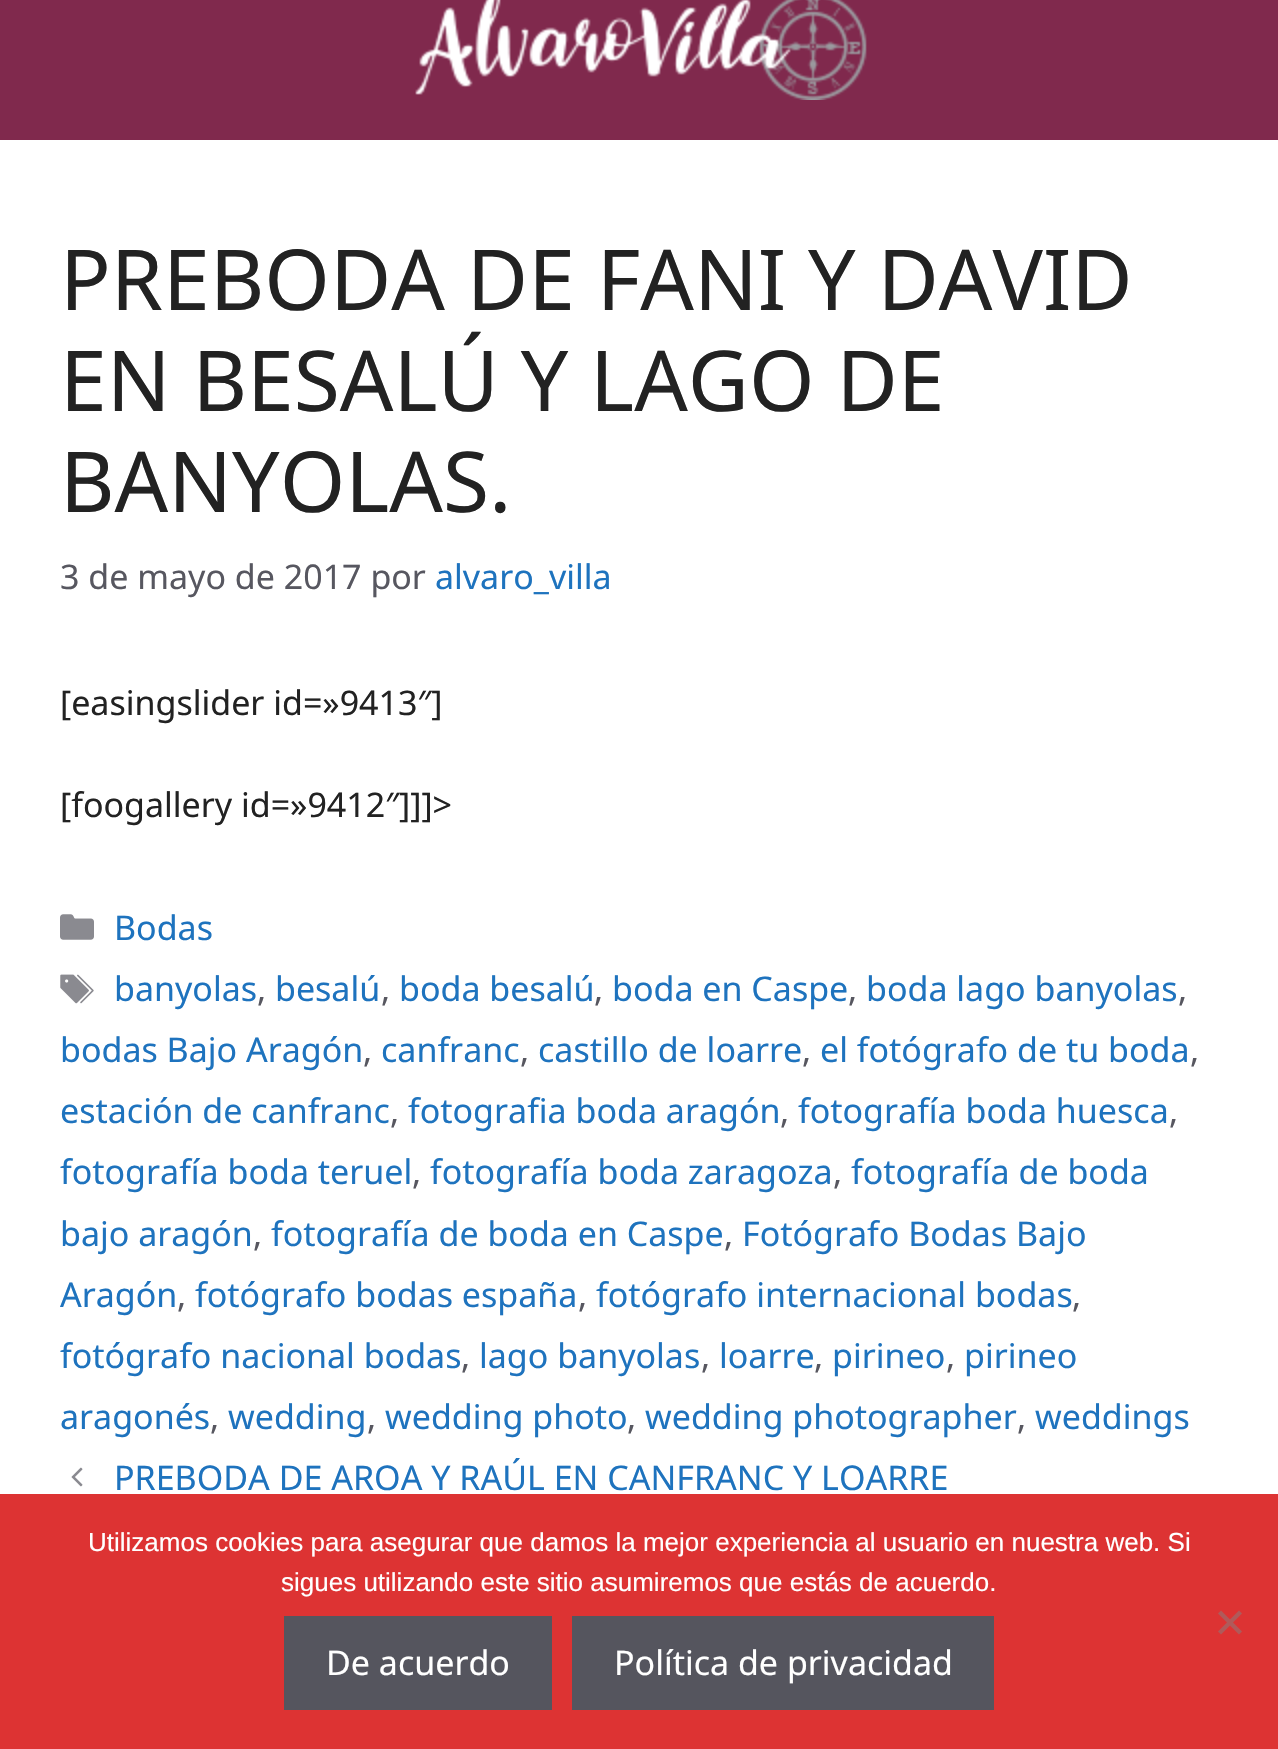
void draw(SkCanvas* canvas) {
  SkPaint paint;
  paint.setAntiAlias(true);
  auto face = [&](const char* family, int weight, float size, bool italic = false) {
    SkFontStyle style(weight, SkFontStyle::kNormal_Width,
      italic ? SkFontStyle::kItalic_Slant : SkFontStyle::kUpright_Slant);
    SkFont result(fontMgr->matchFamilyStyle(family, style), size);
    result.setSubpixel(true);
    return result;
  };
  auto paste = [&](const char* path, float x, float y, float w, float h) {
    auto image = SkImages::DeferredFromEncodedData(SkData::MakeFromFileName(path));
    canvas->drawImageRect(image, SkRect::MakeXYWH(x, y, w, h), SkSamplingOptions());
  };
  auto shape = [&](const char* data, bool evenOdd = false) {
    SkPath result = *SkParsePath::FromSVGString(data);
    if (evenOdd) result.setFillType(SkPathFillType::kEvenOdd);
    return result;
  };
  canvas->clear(0xffffffff);
  paint.setColor(0xff80294d);
  canvas->drawRect(SkRect::MakeXYWH(0, 0, 1278, 140), paint);
  paste("img/1.png", 415, 0, 452, 100);
  paste("img/2.png", 60, 914, 34, 26);
  paste("img/3.png", 60, 974, 34, 30);
  paste("img/4.png", 71, 1467, 12, 20);
  paint.setColor(0xffdd3333);
  canvas->drawRect(SkRect::MakeXYWH(0, 1494, 1278, 255), paint);
  paint.setColor(0xffaf5a5a);
  canvas->drawPath(shape("M1239 1610.5L1242 1613.5L1221 1634.5L1218 1631.5Z"), paint);
  canvas->drawPath(shape("M1218 1613.5L1221 1610.5L1242 1631.5L1239 1634.5Z"), paint);
  paint.setColor(0xff55555e);
  canvas->drawRect(SkRect::MakeXYWH(284, 1616, 268, 94), paint);
  canvas->drawRect(SkRect::MakeXYWH(572, 1616, 422, 94), paint);
  auto f0 = face("Noto Sans", 400, 84);
  paint.setColor(0xff222222);
  {
    const struct { const char* s; float x, y; } items[] = {
      {"PREBODA DE FANI Y DAVID", 60, 310},
      {"EN BESALÚ Y LAGO DE", 60, 411},
      {"BANYOLAS.", 60, 512},
    };
    for (auto [s, x, y] : items) {
      canvas->drawString(s, x, y, f0, paint);
    }
  }
  auto f1 = face("Noto Sans", 400, 34);
  paint.setColor(0xff575760);
  canvas->drawString("3 de mayo de 2017 por", 60, 589, f1, paint);
  paint.setColor(0xff1e73be);
  canvas->drawString("alvaro_villa", 435, 589, f1, paint);
  paint.setColor(0xff222222);
  canvas->drawString("[easingslider id=»9413″]", 60, 715, f1, paint);
  canvas->drawString("[foogallery id=»9412″]]]>", 60, 817, f1, paint);
  paint.setColor(0xff1e73be);
  canvas->drawString("Bodas", 114, 940, f1, paint);
  canvas->drawString("banyolas", 114, 1001, f1, paint);
  paint.setColor(0xff575760);
  canvas->drawString(",", 257, 1001, f1, paint);
  paint.setColor(0xff1e73be);
  canvas->drawString("besalú", 275, 1001, f1, paint);
  paint.setColor(0xff575760);
  canvas->drawString(",", 381, 1001, f1, paint);
  paint.setColor(0xff1e73be);
  canvas->drawString("boda besalú", 399, 1001, f1, paint);
  paint.setColor(0xff575760);
  canvas->drawString(",", 594, 1001, f1, paint);
  paint.setColor(0xff1e73be);
  canvas->drawString("boda en Caspe", 612, 1001, f1, paint);
  paint.setColor(0xff575760);
  canvas->drawString(",", 848, 1001, f1, paint);
  paint.setColor(0xff1e73be);
  canvas->drawString("boda lago banyolas", 866, 1001, f1, paint);
  paint.setColor(0xff575760);
  canvas->drawString(",", 1178, 1001, f1, paint);
  paint.setColor(0xff1e73be);
  canvas->drawString("bodas Bajo Aragón", 60, 1062, f1, paint);
  paint.setColor(0xff575760);
  canvas->drawString(",", 363, 1062, f1, paint);
  paint.setColor(0xff1e73be);
  canvas->drawString("canfranc", 381, 1062, f1, paint);
  paint.setColor(0xff575760);
  canvas->drawString(",", 520, 1062, f1, paint);
  paint.setColor(0xff1e73be);
  canvas->drawString("castillo de loarre", 538, 1062, f1, paint);
  paint.setColor(0xff575760);
  canvas->drawString(",", 802, 1062, f1, paint);
  paint.setColor(0xff1e73be);
  canvas->drawString("el fotógrafo de tu boda", 820, 1062, f1, paint);
  paint.setColor(0xff575760);
  canvas->drawString(",", 1190, 1062, f1, paint);
  paint.setColor(0xff1e73be);
  canvas->drawString("estación de canfranc", 60, 1123, f1, paint);
  paint.setColor(0xff575760);
  canvas->drawString(",", 390, 1123, f1, paint);
  paint.setColor(0xff1e73be);
  canvas->drawString("fotografia boda aragón", 408, 1123, f1, paint);
  paint.setColor(0xff575760);
  canvas->drawString(",", 780, 1123, f1, paint);
  paint.setColor(0xff1e73be);
  canvas->drawString("fotografía boda huesca", 798, 1123, f1, paint);
  paint.setColor(0xff575760);
  canvas->drawString(",", 1169, 1123, f1, paint);
  paint.setColor(0xff1e73be);
  canvas->drawString("fotografía boda teruel", 60, 1184, f1, paint);
  paint.setColor(0xff575760);
  canvas->drawString(",", 412, 1184, f1, paint);
  paint.setColor(0xff1e73be);
  canvas->drawString("fotografía boda zaragoza", 430, 1184, f1, paint);
  paint.setColor(0xff575760);
  canvas->drawString(",", 833, 1184, f1, paint);
  paint.setColor(0xff1e73be);
  canvas->drawString("fotografía de boda", 851, 1184, f1, paint);
  canvas->drawString("bajo aragón", 60, 1246, f1, paint);
  paint.setColor(0xff575760);
  canvas->drawString(",", 253, 1246, f1, paint);
  paint.setColor(0xff1e73be);
  canvas->drawString("fotografía de boda en Caspe", 271, 1246, f1, paint);
  paint.setColor(0xff575760);
  canvas->drawString(",", 724, 1246, f1, paint);
  paint.setColor(0xff1e73be);
  canvas->drawString("Fotógrafo Bodas Bajo", 742, 1246, f1, paint);
  canvas->drawString("Aragón", 60, 1307, f1, paint);
  paint.setColor(0xff575760);
  canvas->drawString(",", 177, 1307, f1, paint);
  paint.setColor(0xff1e73be);
  canvas->drawString("fotógrafo bodas españa", 195, 1307, f1, paint);
  paint.setColor(0xff575760);
  canvas->drawString(",", 578, 1307, f1, paint);
  paint.setColor(0xff1e73be);
  canvas->drawString("fotógrafo internacional bodas", 596, 1307, f1, paint);
  paint.setColor(0xff575760);
  canvas->drawString(",", 1072, 1307, f1, paint);
  paint.setColor(0xff1e73be);
  canvas->drawString("fotógrafo nacional bodas", 60, 1368, f1, paint);
  paint.setColor(0xff575760);
  canvas->drawString(",", 461, 1368, f1, paint);
  paint.setColor(0xff1e73be);
  canvas->drawString("lago banyolas", 479, 1368, f1, paint);
  paint.setColor(0xff575760);
  canvas->drawString(",", 701, 1368, f1, paint);
  paint.setColor(0xff1e73be);
  canvas->drawString("loarre", 719, 1368, f1, paint);
  paint.setColor(0xff575760);
  canvas->drawString(",", 814, 1368, f1, paint);
  paint.setColor(0xff1e73be);
  canvas->drawString("pirineo", 832, 1368, f1, paint);
  paint.setColor(0xff575760);
  canvas->drawString(",", 946, 1368, f1, paint);
  paint.setColor(0xff1e73be);
  canvas->drawString("pirineo", 964, 1368, f1, paint);
  canvas->drawString("aragonés", 60, 1429, f1, paint);
  paint.setColor(0xff575760);
  canvas->drawString(",", 210, 1429, f1, paint);
  paint.setColor(0xff1e73be);
  canvas->drawString("wedding", 228, 1429, f1, paint);
  paint.setColor(0xff575760);
  canvas->drawString(",", 367, 1429, f1, paint);
  paint.setColor(0xff1e73be);
  canvas->drawString("wedding photo", 385, 1429, f1, paint);
  paint.setColor(0xff575760);
  canvas->drawString(",", 627, 1429, f1, paint);
  paint.setColor(0xff1e73be);
  canvas->drawString("wedding photographer", 645, 1429, f1, paint);
  paint.setColor(0xff575760);
  canvas->drawString(",", 1017, 1429, f1, paint);
  paint.setColor(0xff1e73be);
  canvas->drawString("weddings", 1035, 1429, f1, paint);
  canvas->drawString("PREBODA DE AROA Y RAÚL EN CANFRANC Y LOARRE", 114, 1490, f1, paint);
  auto f2 = face("Liberation Sans", 400, 26);
  paint.setColor(0xffffffff);
  canvas->drawString("Utilizamos cookies para asegurar que damos la mejor experiencia al usuario en nuestra web. Si", 88, 1551, f2, paint);
  canvas->drawString("sigues utilizando este sitio asumiremos que estás de acuerdo.", 281, 1591, f2, paint);
  canvas->drawString("De acuerdo", 326, 1675, f1, paint);
  canvas->drawString("Política de privacidad", 614, 1675, f1, paint);
}
